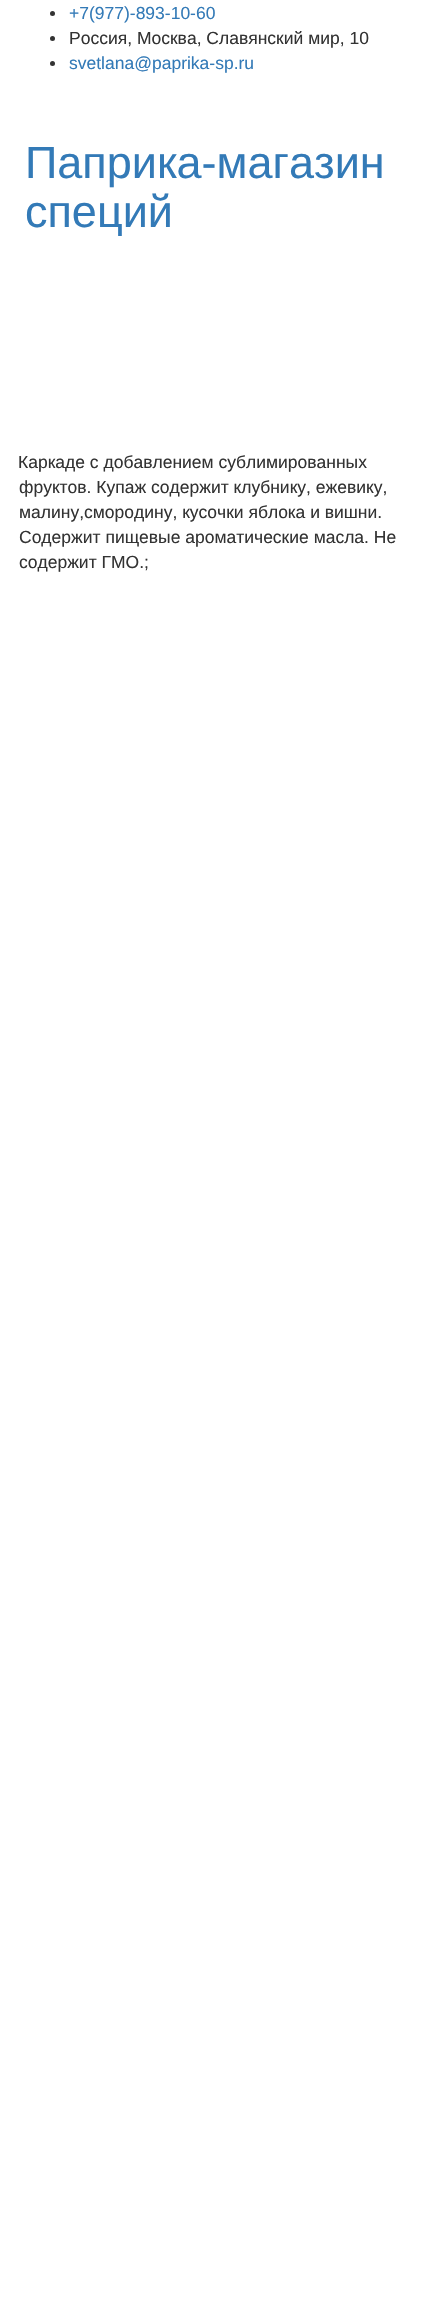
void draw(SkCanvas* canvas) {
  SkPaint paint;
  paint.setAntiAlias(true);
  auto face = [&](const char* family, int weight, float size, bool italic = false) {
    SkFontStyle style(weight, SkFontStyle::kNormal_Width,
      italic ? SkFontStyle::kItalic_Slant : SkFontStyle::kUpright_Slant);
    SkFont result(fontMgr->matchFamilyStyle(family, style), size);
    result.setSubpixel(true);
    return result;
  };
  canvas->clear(0xffffffff);
  paint.setColor(0xff333333);
  canvas->drawCircle(52.5f, 13.5f, 2.5f, paint);
  canvas->drawCircle(52.5f, 38.5f, 2.5f, paint);
  canvas->drawCircle(52.5f, 63.5f, 2.5f, paint);
  auto f0 = face("Liberation Sans", 400, 17.5f);
  paint.setColor(0xff337ab7);
  canvas->drawString("+7(977)-893-10-60", 69, 19, f0, paint);
  paint.setColor(0xff333333);
  canvas->drawString("Россия, Москва, Славянский мир, 10", 69, 44, f0, paint);
  paint.setColor(0xff337ab7);
  canvas->drawString("svetlana@paprika-sp.ru", 69, 69, f0, paint);
  auto f1 = face("Liberation Sans", 400, 45);
  canvas->drawString("Паприка-магазин", 25, 178, f1, paint);
  canvas->drawString("специй", 25, 227, f1, paint);
  paint.setColor(0xff333333);
  {
    const struct { const char* s; float x, y; } items[] = {
      {"Каркаде с добавлением сублимированных", 18, 468},
      {"фруктов. Купаж содержит клубнику, ежевику,", 19, 493},
      {"малину,смородину, кусочки яблока и вишни.", 19, 518},
      {"Содержит пищевые ароматические масла. Не", 19, 543},
      {"содержит ГМО.;", 19, 568},
    };
    for (auto [s, x, y] : items) {
      canvas->drawString(s, x, y, f0, paint);
    }
  }
}
